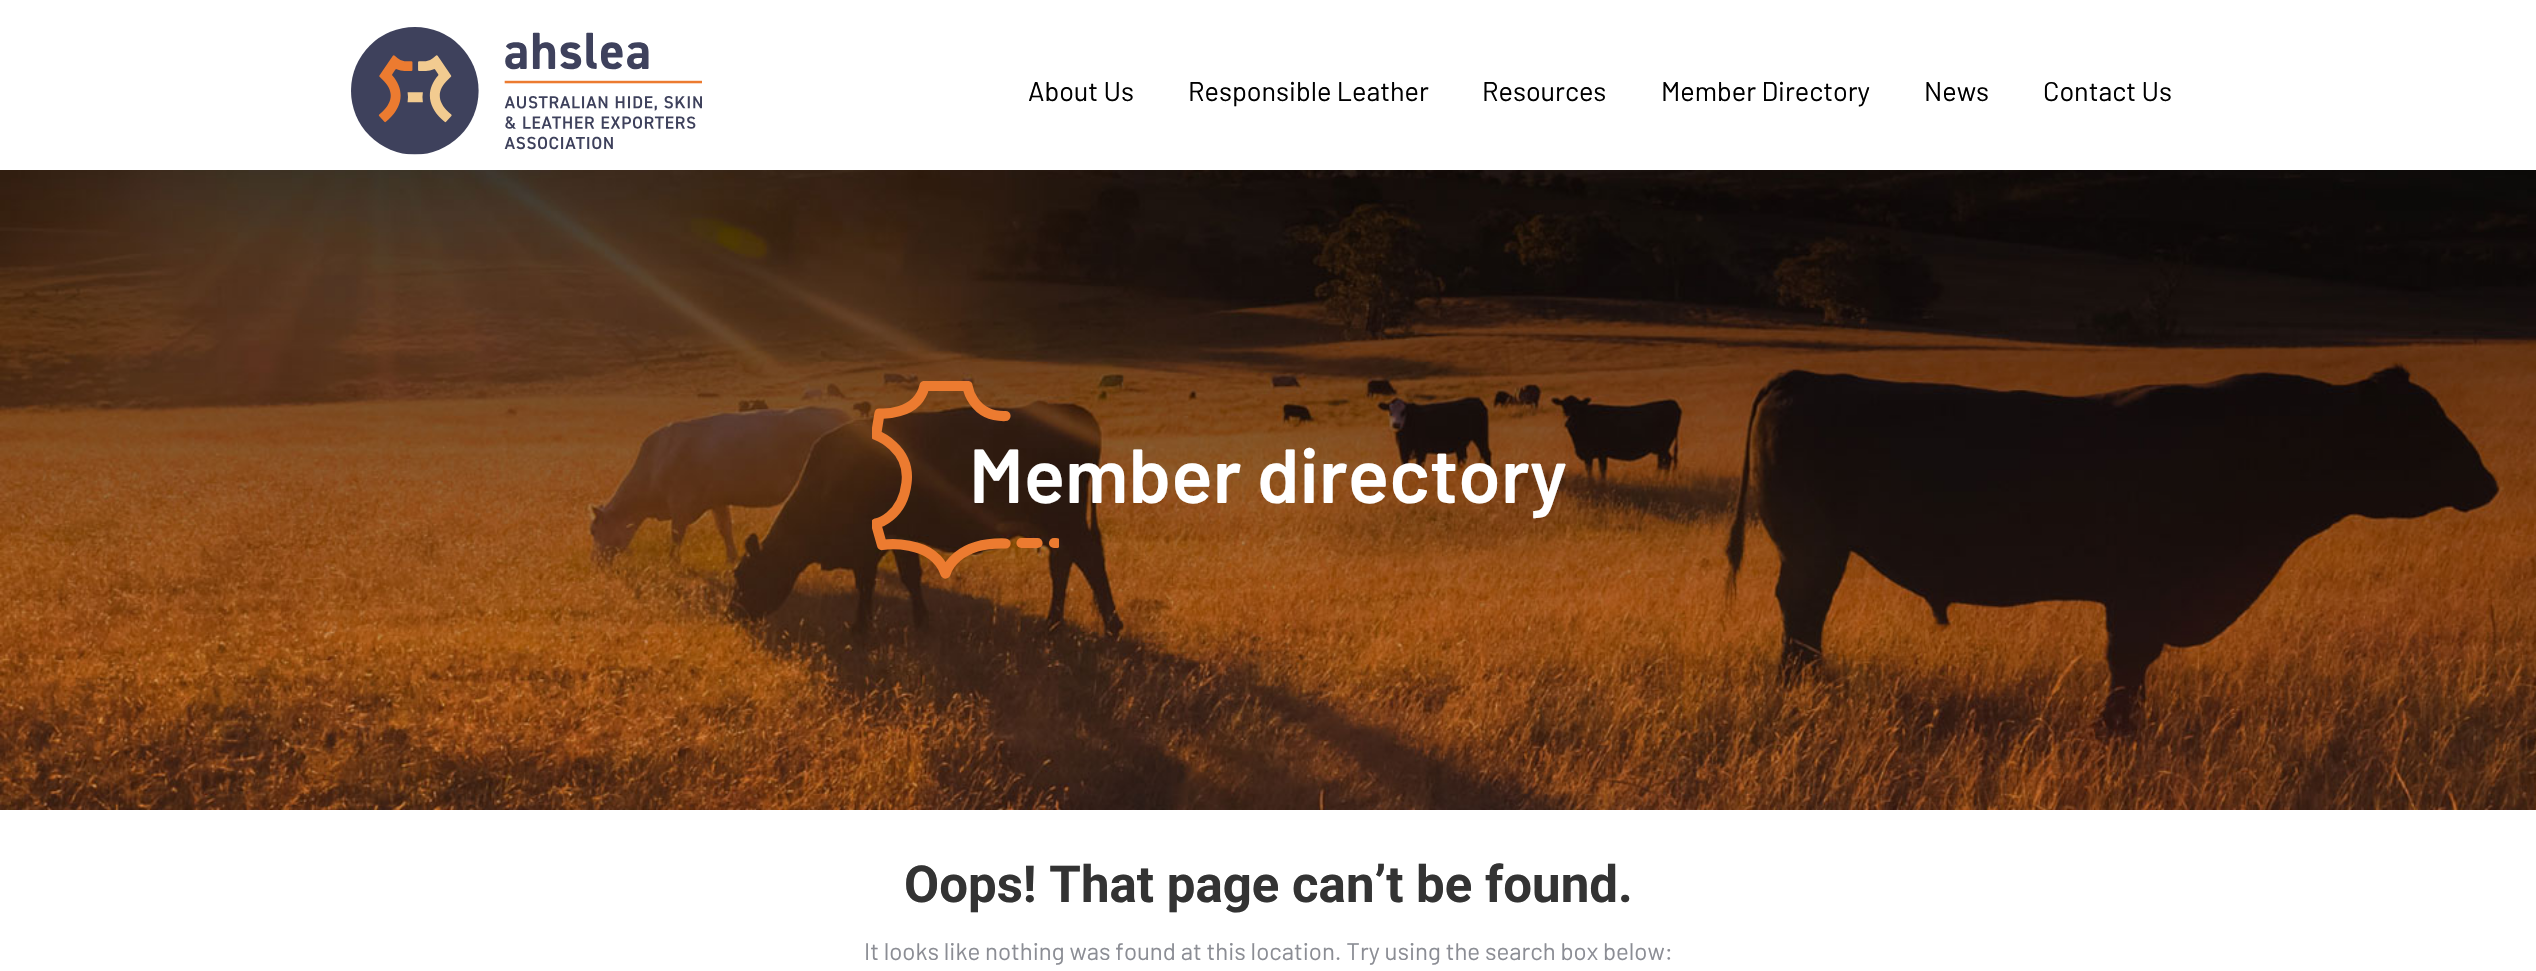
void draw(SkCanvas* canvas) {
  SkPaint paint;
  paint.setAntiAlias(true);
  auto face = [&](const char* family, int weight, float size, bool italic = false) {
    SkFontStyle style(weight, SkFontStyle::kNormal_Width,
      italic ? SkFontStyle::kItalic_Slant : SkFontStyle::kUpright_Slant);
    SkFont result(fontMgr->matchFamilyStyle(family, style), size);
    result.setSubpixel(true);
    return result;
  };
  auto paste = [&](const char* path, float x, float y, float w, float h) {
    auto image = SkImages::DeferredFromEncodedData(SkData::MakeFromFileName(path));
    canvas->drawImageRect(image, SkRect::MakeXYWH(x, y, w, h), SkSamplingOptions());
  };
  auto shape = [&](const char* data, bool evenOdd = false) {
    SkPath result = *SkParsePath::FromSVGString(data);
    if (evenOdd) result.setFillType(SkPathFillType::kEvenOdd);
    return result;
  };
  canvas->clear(0xffffffff);
  paste("img/1.png", 351, 27, 351, 128);
  paste("img/2.png", 0, 170, 2536, 640);
  canvas->save();
  canvas->clipRect(SkRect::MakeXYWH(872, 381, 187, 198));
  paint.setStroke(true);
  paint.setStrokeWidth(10.2f);
  paint.setStrokeCap(SkPaint::kRound_Cap);
  paint.setStrokeJoin(SkPaint::kRound_Join);
  paint.setColor(0xffec7b30);
  canvas->drawPath(shape("M1005.5 543.5C953 542 945.5 574 945.5 573.5C933 537.5 882 545 882 545L876 523.5C876 523.5 902.5 518 906.5 483C911 448 876 435 876 435L879.5 413.5C879.5 413.5 917.5 416.5 924.5 386H967.5C967.5 386 972 417 1005.5 416"), paint);
  canvas->restore();
  paint.setStrokeJoin(SkPaint::kMiter_Join);
  canvas->drawPath(shape("M1021.5 543H1037.5"), paint);
  canvas->save();
  canvas->clipRect(SkRect::MakeXYWH(872, 381, 187, 198));
  canvas->drawPath(shape("M1054 543H1056"), paint);
  canvas->restore();
  auto f0 = face("Barlow", 400, 27);
  paint.setStroke(false);
  paint.setColor(0xff000000);
  {
    const struct { const char* s; float x, y; } items[] = {
      {"About Us", 1028, 101},
      {"Responsible Leather", 1188, 101},
      {"Resources", 1482, 101},
      {"Member Directory", 1661, 101},
      {"News", 1924, 101},
      {"Contact Us", 2043, 101},
    };
    for (auto [s, x, y] : items) {
      canvas->drawString(s, x, y, f0, paint);
    }
  }
  auto f1 = face("Barlow", 600, 76.5f);
  paint.setColor(0xffffffff);
  canvas->drawString("Member directory", 969, 503, f1, paint);
  auto f2 = face("Roboto", 700, 51);
  paint.setColor(0xff333333);
  canvas->drawString("Oops! That page can’t be found.", 904, 902, f2, paint);
  auto f3 = face("Barlow", 400, 24);
  paint.setColor(0xff8b8d94);
  canvas->drawString("It looks like nothing was found at this location. Try using the search box below:", 864, 960, f3, paint);
}
